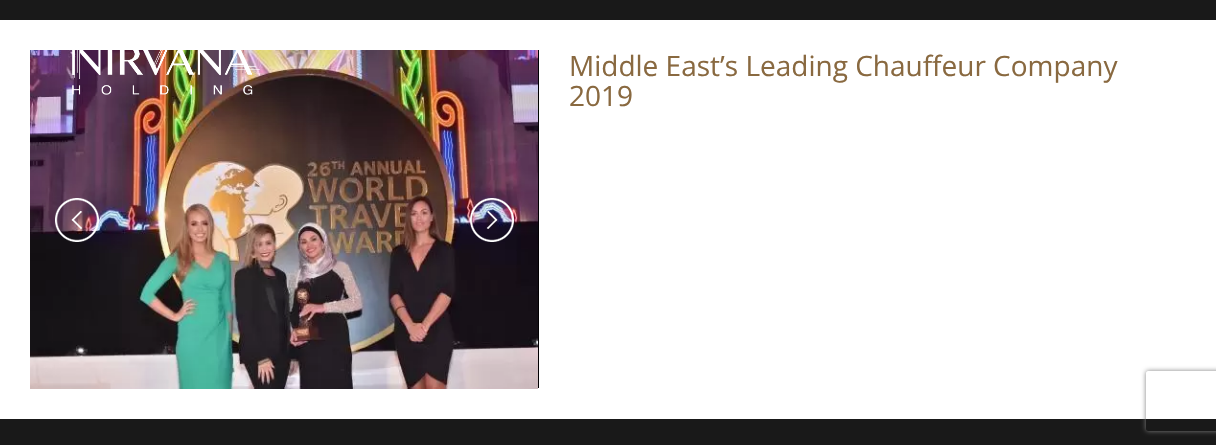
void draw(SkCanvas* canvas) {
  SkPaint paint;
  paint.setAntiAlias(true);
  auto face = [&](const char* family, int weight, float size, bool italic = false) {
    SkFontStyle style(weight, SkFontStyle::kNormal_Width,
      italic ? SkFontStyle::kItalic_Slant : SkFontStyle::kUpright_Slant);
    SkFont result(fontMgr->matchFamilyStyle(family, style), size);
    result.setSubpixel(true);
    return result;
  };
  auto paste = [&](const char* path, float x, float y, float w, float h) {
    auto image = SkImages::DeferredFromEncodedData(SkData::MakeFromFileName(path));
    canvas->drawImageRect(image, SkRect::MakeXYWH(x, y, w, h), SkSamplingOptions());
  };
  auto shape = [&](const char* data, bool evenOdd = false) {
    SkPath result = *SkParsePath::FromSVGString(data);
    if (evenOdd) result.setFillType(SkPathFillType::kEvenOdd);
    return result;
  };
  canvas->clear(0xff191919);
  paint.setColor(0xffffffff);
  canvas->drawRect(SkRect::MakeXYWH(0, 20, 1216, 399), paint);
  paste("img/2.png", 30, 50, 508, 339);
  paste("img/1.png", 72, 50, 188, 45);
  paste("img/3.png", 538, 50, 1, 338);
  paste("img/4.png", 55, 198, 44, 44);
  paste("img/5.png", 470, 198, 44, 44);
  canvas->save();
  canvas->clipPath(shape("M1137 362H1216V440H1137ZM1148 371H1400C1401 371 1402 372 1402 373V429C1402 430 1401 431 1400 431H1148C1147 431 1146 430 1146 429V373C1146 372 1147 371 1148 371Z", true), true);
  paint.setColor(0xff808080);
  paint.setMaskFilter(SkMaskFilter::MakeBlur(kNormal_SkBlurStyle, 2.5f));
  canvas->drawRoundRect(SkRect::MakeXYWH(1146, 371, 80, 60), 2, 2, paint);
  paint.setMaskFilter(nullptr);
  canvas->restore();
  auto f0 = face("Open Sans", 400, 28);
  paint.setColor(0xff896940);
  canvas->drawString("Middle East’s Leading Chauffeur Company", 569, 76, f0, paint);
  canvas->drawString("2019", 569, 106, f0, paint);
}
